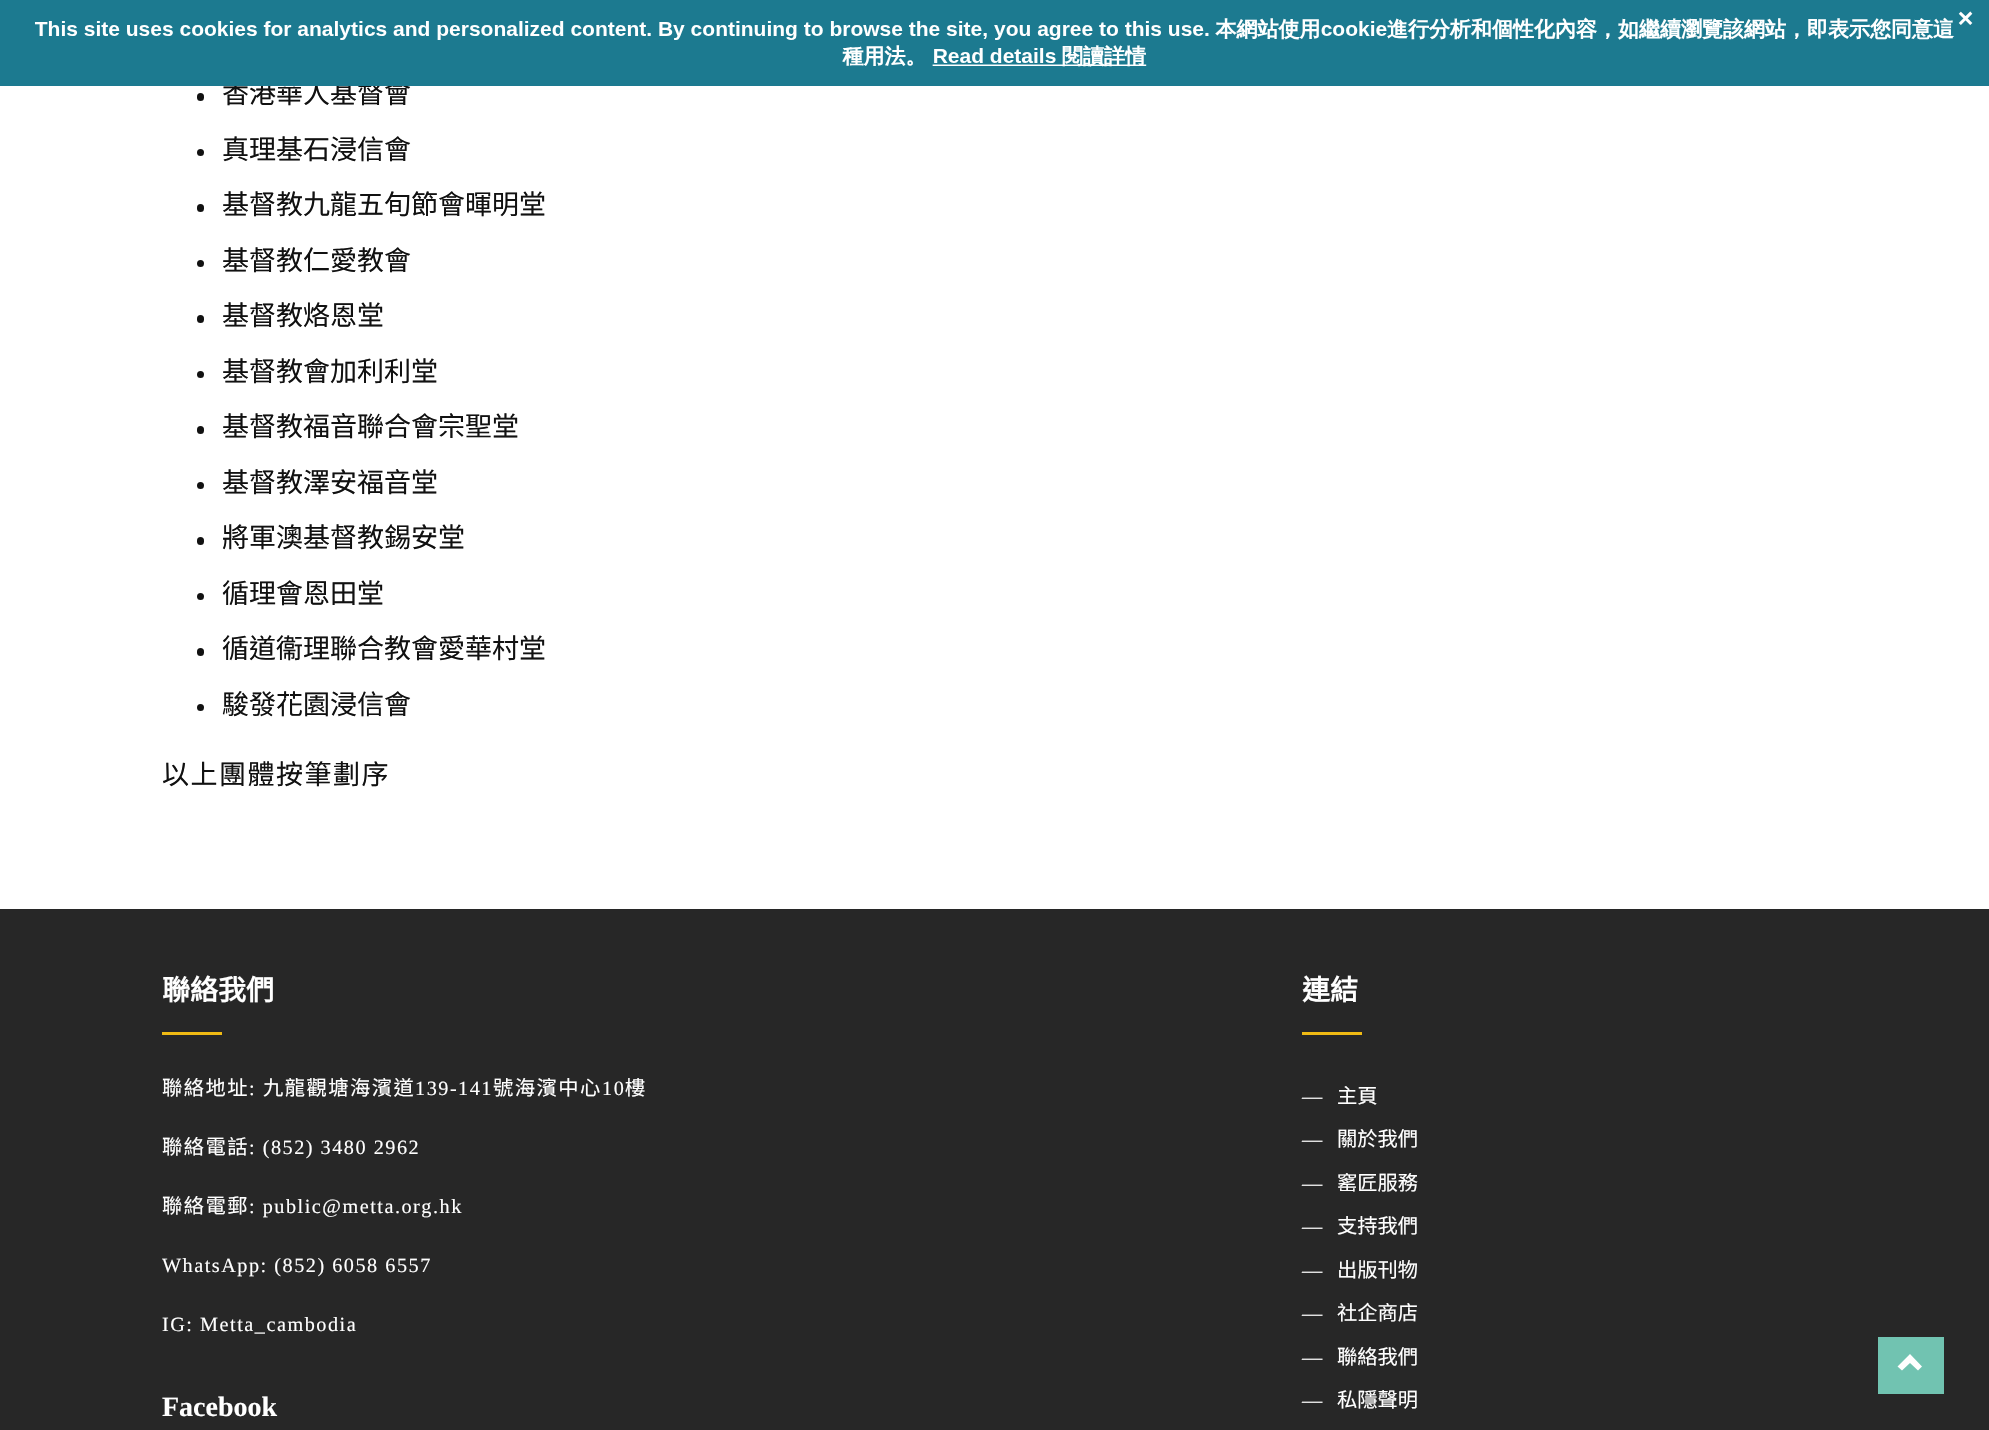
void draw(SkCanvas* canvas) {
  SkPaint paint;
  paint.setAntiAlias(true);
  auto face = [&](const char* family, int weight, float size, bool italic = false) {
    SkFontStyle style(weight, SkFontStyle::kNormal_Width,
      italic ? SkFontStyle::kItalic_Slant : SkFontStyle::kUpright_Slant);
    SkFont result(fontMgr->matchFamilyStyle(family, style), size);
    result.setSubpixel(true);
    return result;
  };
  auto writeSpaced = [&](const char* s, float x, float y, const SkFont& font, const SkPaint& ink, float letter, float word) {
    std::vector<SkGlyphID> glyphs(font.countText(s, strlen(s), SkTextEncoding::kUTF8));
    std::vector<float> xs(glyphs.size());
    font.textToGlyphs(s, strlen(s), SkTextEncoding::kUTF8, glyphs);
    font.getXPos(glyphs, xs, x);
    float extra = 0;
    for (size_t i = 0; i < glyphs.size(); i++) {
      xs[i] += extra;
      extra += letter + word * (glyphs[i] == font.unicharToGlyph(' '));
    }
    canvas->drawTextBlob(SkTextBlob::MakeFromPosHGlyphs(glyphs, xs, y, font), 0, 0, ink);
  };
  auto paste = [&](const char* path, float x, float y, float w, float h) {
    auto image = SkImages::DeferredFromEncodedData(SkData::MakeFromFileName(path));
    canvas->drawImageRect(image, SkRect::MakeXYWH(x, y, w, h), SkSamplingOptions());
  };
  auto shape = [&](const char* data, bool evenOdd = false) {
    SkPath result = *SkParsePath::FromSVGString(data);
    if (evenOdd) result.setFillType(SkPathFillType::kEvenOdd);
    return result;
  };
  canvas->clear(0xffffffff);
  paint.setColor(0xff111111);
  canvas->drawRoundRect(SkRect::MakeXYWH(197, 93, 7, 8), 3.5f, 3.5f, paint);
  canvas->drawCircle(200.5f, 152.5f, 3.5f, paint);
  canvas->drawRoundRect(SkRect::MakeXYWH(197, 204, 7, 8), 3.5f, 3.5f, paint);
  canvas->drawCircle(200.5f, 263.5f, 3.5f, paint);
  canvas->drawRoundRect(SkRect::MakeXYWH(197, 315, 7, 8), 3.5f, 3.5f, paint);
  canvas->drawCircle(200.5f, 374.5f, 3.5f, paint);
  canvas->drawRoundRect(SkRect::MakeXYWH(197, 426, 7, 8), 3.5f, 3.5f, paint);
  canvas->drawCircle(200.5f, 485.5f, 3.5f, paint);
  canvas->drawRoundRect(SkRect::MakeXYWH(197, 537, 7, 8), 3.5f, 3.5f, paint);
  canvas->drawCircle(200.5f, 596.5f, 3.5f, paint);
  canvas->drawRoundRect(SkRect::MakeXYWH(197, 648, 7, 8), 3.5f, 3.5f, paint);
  canvas->drawCircle(200.5f, 707.5f, 3.5f, paint);
  {
    const struct { float x, y, w, h; SkColor color; } items[] = {
      {0, 909, 1989, 521, 0xff272727},
      {162, 1032, 60, 3, 0xfff0ba14},
      {1302, 1032, 60, 3, 0xfff0ba14},
      {1878, 1337, 66, 57, 0xff71c3b1},
    };
    for (auto [x, y, w, h, color] : items) {
      paint.setColor(color);
      canvas->drawRect(SkRect::MakeXYWH(x, y, w, h), paint);
    }
  }
  paint.setColor(0xffffffff);
  canvas->drawPath(shape("M1922 1366.5L1918 1370.5L1910 1363L1902 1370.5L1897.5 1366.5L1910 1354Z"), paint);
  auto f0 = face("Noto Sans CJK TC", 400, 27);
  paint.setColor(0xff111111);
  canvas->drawString("香港華人基督會", 222, 103, f0, paint);
  paste("img/1.png", 0, 0, 1989, 86);
  {
    const struct { const char* s; float x, y; } items[] = {
      {"真理基石浸信會", 222, 159},
      {"基督教九龍五旬節會暉明堂", 222, 214},
      {"基督教仁愛教會", 222, 270},
      {"基督教烙恩堂", 222, 325},
      {"基督教會加利利堂", 222, 381},
      {"基督教福音聯合會宗聖堂", 222, 436},
      {"基督教澤安福音堂", 222, 492},
      {"將軍澳基督教錫安堂", 222, 547},
      {"循理會恩田堂", 222, 603},
      {"循道衞理聯合教會愛華村堂", 222, 658},
      {"駿發花園浸信會", 222, 714},
    };
    for (auto [s, x, y] : items) {
      canvas->drawString(s, x, y, f0, paint);
    }
  }
  writeSpaced("以上團體按筆劃序", 162, 784, f0, paint, 1.5f, 0);
  auto f1 = face("Noto Sans CJK TC", 700, 28);
  paint.setColor(0xffffffff);
  canvas->drawString("聯絡我們", 162, 1000, f1, paint);
  auto f2 = face("Noto Sans CJK TC", 400, 20.25f);
  writeSpaced("聯絡地址", 162, 1095, f2, paint, 1.5f, 0);
  auto f3 = face("Liberation Serif", 400, 20.25f);
  writeSpaced(":", 249, 1095, f3, paint, 1.5f, 0);
  writeSpaced("九龍觀塘海濱道", 263, 1095, f2, paint, 1.5f, 0);
  writeSpaced("139-141", 415, 1095, f3, paint, 1.5f, 0);
  writeSpaced("號海濱中心", 493, 1095, f2, paint, 1.5f, 0);
  writeSpaced("10", 602, 1095, f3, paint, 1.5f, 0);
  writeSpaced("樓", 625, 1095, f2, paint, 1.5f, 0);
  writeSpaced("聯絡電話", 162, 1154, f2, paint, 1.5f, 0);
  writeSpaced(": (852) 3480 2962", 249, 1154, f3, paint, 1.5f, 0);
  writeSpaced("聯絡電郵", 162, 1213, f2, paint, 1.5f, 0);
  {
    const struct { const char* s; float x, y; } items[] = {
      {": public@metta.org.hk", 249, 1213},
      {"WhatsApp: (852) 6058 6557", 162, 1272},
      {"IG: Metta_cambodia", 162, 1331},
    };
    for (auto [s, x, y] : items) {
      writeSpaced(s, x, y, f3, paint, 1.5f, 0);
    }
  }
  auto f4 = face("Liberation Serif", 700, 28);
  canvas->drawString("Facebook", 162, 1416, f4, paint);
  canvas->drawString("連結", 1302, 1000, f1, paint);
  canvas->drawString("—", 1302, 1103, f3, paint);
  canvas->drawString("主頁", 1337, 1103, f2, paint);
  canvas->drawString("—", 1302, 1146, f3, paint);
  canvas->drawString("關於我們", 1337, 1146, f2, paint);
  canvas->drawString("—", 1302, 1190, f3, paint);
  canvas->drawString("窰匠服務", 1337, 1190, f2, paint);
  canvas->drawString("—", 1302, 1233, f3, paint);
  canvas->drawString("支持我們", 1337, 1233, f2, paint);
  canvas->drawString("—", 1302, 1277, f3, paint);
  canvas->drawString("出版刊物", 1337, 1277, f2, paint);
  canvas->drawString("—", 1302, 1320, f3, paint);
  canvas->drawString("社企商店", 1337, 1320, f2, paint);
  canvas->drawString("—", 1302, 1364, f3, paint);
  canvas->drawString("聯絡我們", 1337, 1364, f2, paint);
  canvas->drawString("—", 1302, 1407, f3, paint);
  canvas->drawString("私隱聲明", 1337, 1407, f2, paint);
}
